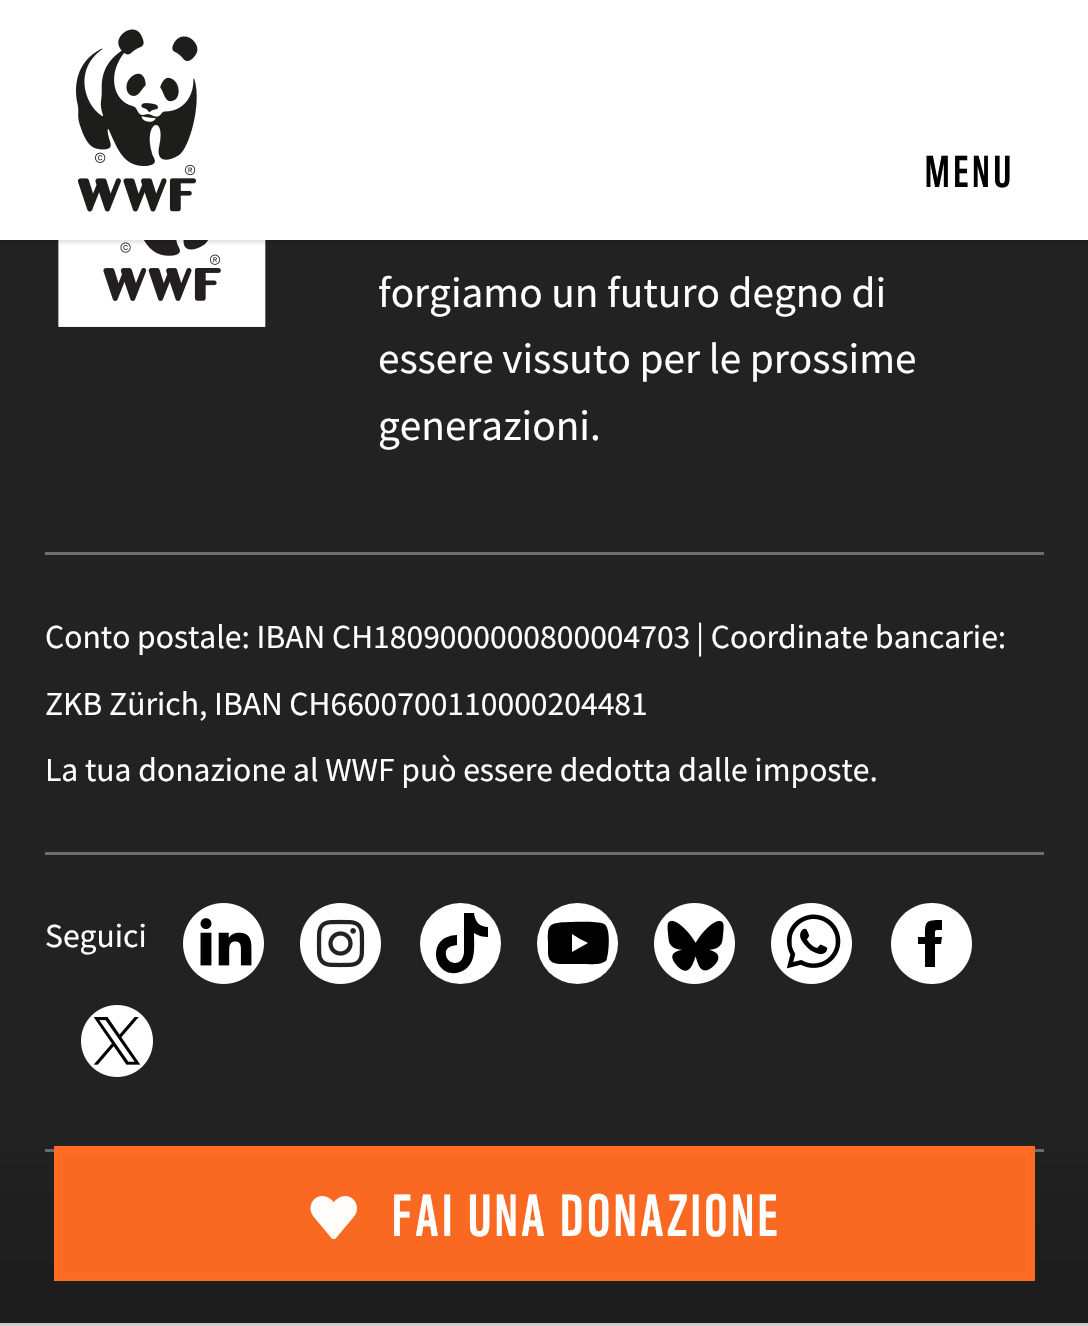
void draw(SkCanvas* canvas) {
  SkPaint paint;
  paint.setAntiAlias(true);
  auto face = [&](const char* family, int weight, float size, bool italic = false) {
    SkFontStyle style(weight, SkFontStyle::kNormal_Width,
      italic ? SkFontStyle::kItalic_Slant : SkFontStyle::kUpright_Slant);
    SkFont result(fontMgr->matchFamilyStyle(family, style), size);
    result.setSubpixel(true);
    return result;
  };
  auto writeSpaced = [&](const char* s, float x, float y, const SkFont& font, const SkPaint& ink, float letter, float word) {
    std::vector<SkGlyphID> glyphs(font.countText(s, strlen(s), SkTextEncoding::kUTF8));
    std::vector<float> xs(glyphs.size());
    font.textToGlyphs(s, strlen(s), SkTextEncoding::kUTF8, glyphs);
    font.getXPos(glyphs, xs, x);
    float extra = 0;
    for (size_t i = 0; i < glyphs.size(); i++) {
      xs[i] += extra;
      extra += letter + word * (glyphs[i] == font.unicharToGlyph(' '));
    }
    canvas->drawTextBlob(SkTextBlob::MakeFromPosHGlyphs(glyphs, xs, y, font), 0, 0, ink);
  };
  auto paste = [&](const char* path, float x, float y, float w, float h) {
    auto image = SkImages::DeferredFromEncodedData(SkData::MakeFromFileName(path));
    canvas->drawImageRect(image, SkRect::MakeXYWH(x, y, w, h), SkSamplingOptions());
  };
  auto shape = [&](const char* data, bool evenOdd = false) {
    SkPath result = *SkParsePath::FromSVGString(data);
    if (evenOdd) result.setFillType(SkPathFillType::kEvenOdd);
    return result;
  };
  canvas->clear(0xffffffff);
  paint.setColor(0xff222222);
  canvas->drawRect(SkRect::MakeXYWH(0, 240, 1088, 1083), paint);
  paste("img/3.png", 58, 240, 208, 87);
  paint.setColor(0x1a000000);
  paint.setMaskFilter(SkMaskFilter::MakeBlur(kNormal_SkBlurStyle, 1.5f));
  canvas->drawRect(SkRect::MakeXYWH(0, 3, 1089, 240), paint);
  paint.setMaskFilter(nullptr);
  paint.setColor(0xffffffff);
  canvas->drawRect(SkRect::MakeXYWH(0, 1, 1088, 239), paint);
  paste("img/1.png", 75, 29, 123, 183);
  paint.setColor(0xff6e6e6e);
  canvas->drawRect(SkRect::MakeXYWH(45, 1149, 999, 3), paint);
  {
    const SkColor colors[] = {0x00000000, 0x33000000, 0xfa000000};
    const float stops[] = {0, 1, 1};
    const SkPoint ends[] = {{545, 1098}, {545, 1326}};
    paint.setShader(SkGradientShader::MakeLinear(ends, colors, stops, 3, SkTileMode::kClamp));
    paint.setAlpha(255);
  }
  canvas->drawRect(SkRect::MakeXYWH(0, 1149, 1088, 177), paint);
  paint.setShader(nullptr);
  paint.setColor(0xfafe6a22);
  canvas->drawRect(SkRect::MakeXYWH(54, 1146, 981, 135), paint);
  paint.setStroke(true);
  paint.setStrokeWidth(9);
  canvas->drawRect(SkRect::MakeXYWH(58.5f, 1150.5f, 972, 126), paint);
  paste("img/2.png", 310, 1196, 47, 43);
  paint.setStroke(false);
  paint.setColor(0xff6e6e6e);
  canvas->drawRect(SkRect::MakeXYWH(45, 552, 999, 3), paint);
  canvas->drawRect(SkRect::MakeXYWH(45, 852, 999, 3), paint);
  paste("img/4.png", 183, 903, 81, 81);
  paste("img/5.png", 300, 903, 81, 81);
  paint.setColor(0xffffffff);
  canvas->drawCircle(460.5f, 943.5f, 40.5f, paint);
  paint.setColor(0xff000000);
  canvas->drawPath(shape("M474 913C475 922 480 927 488 927V937C483 937 479 936 474 933C474 947 477 966 460 972C434 981 424 936 457 935V945L452 946C448 947 445 950 446 955C447 965 465 968 464 949V913Z"), paint);
  paint.setColor(0xffffffff);
  canvas->drawCircle(577.5f, 943.5f, 40.5f, paint);
  paint.setColor(0xff000000);
  canvas->drawPath(shape("M569 922C550 923 547 923 548 942V954C549 961 551 963 559 964H583C588 964 600 965 604 962C606 961 607 960 607 958C609 952 611 927 604 924C598 921 578 922 569 922ZM580 939L588 943L572 952V934Z"), paint);
  paste("img/6.png", 654, 903, 81, 81);
  paste("img/7.png", 771, 903, 81, 81);
  paint.setColor(0xffffffff);
  canvas->drawPath(shape("M932 903C909 903 891 921 891 944C891 966 909 984 932 984C954 984 972 966 972 944C972 921 954 903 932 903Z"), paint);
  paint.setColor(0xff000000);
  canvas->drawPath(shape("M942 930C934 930 935 929 935 937H942L941 944H935V967H925V944H918V937H925C925 921 925 920 942 920Z", true), paint);
  paste("img/8.png", 81, 1005, 72, 72);
  auto f0 = face("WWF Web", 400, 43.25f);
  writeSpaced("MENU", 925, 187, f0, paint, 4, 0);
  auto f1 = face("WWF Web", 400, 57.5f);
  paint.setColor(0xffffffff);
  writeSpaced("FAI UNA DONAZIONE", 392, 1236, f1, paint, 3.6f, 0);
  auto f2 = face("Source Sans Pro", 400, 43.25f);
  {
    const struct { const char* s; float x, y; } items[] = {
      {"forgiamo un futuro degno di", 378, 307},
      {"essere vissuto per le prossime", 378, 373},
      {"generazioni.", 378, 440},
    };
    for (auto [s, x, y] : items) {
      canvas->drawString(s, x, y, f2, paint);
    }
  }
  auto f3 = face("Source Sans Pro", 400, 33.6f);
  {
    const struct { const char* s; float x, y; } items[] = {
      {"Conto postale: IBAN CH1809000000800004703", 45, 648},
      {"| Coordinate bancarie:", 696, 648},
      {"ZKB Zürich, IBAN CH6600700110000204481", 45, 715},
      {"La tua donazione al WWF può essere dedotta dalle imposte.", 45, 781},
      {"Seguici", 45, 947},
    };
    for (auto [s, x, y] : items) {
      canvas->drawString(s, x, y, f3, paint);
    }
  }
}
